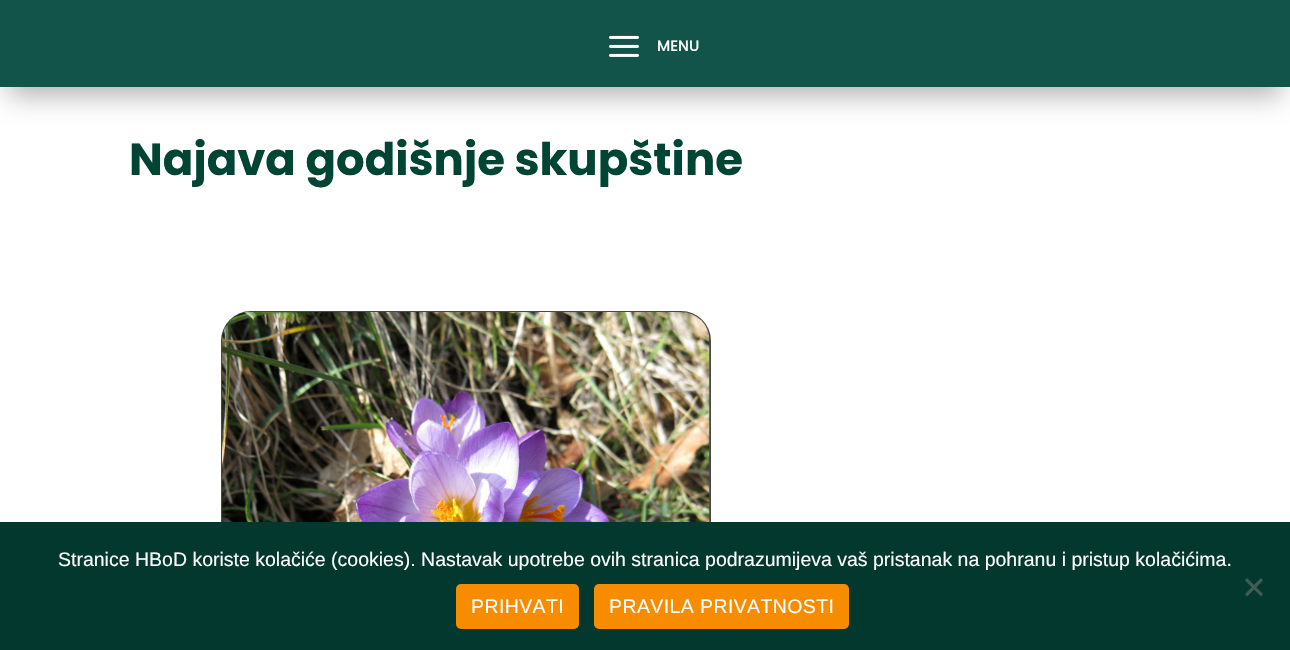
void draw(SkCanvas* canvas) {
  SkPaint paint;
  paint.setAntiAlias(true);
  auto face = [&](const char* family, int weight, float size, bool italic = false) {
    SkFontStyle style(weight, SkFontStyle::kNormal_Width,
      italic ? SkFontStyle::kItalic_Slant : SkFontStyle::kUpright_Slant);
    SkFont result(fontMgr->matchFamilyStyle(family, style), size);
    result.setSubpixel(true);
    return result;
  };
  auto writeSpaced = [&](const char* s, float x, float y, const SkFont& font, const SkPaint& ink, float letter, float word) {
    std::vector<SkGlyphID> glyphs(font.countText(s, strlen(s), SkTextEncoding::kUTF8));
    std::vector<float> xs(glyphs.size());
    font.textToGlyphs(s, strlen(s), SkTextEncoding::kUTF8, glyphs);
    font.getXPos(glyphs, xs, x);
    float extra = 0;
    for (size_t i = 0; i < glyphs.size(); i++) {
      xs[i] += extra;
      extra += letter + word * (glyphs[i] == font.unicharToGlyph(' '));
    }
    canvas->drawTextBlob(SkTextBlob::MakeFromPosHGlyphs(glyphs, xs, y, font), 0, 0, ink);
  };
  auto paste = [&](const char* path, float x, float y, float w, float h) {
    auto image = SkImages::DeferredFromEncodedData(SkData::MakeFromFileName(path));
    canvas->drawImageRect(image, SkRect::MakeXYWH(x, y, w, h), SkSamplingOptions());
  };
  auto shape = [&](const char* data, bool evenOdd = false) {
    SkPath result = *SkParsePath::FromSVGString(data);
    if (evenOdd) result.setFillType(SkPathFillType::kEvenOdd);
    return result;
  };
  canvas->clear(0xffffffff);
  paint.setColor(0x4d000000);
  paint.setMaskFilter(SkMaskFilter::MakeBlur(kNormal_SkBlurStyle, 13.5f));
  canvas->drawRect(SkRect::MakeXYWH(9, 27, 1272, 69), paint);
  paint.setMaskFilter(nullptr);
  paint.setColor(0xff13544a);
  canvas->drawRect(SkRect::MakeXYWH(0, 0, 1290, 87), paint);
  paste("img/1.png", 609, 35, 30, 22);
  paint.setStroke(true);
  paint.setStrokeWidth(2);
  paint.setColor(0xff474747);
  canvas->drawRoundRect(SkRect::MakeXYWH(222, 312, 488, 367), 29, 29, paint);
  paste("img/2.png", 222, 312, 488, 210);
  paint.setStroke(false);
  paint.setColor(0xff02382e);
  canvas->drawRect(SkRect::MakeXYWH(0, 522, 1290, 128), paint);
  paint.setColor(0xff415c57);
  canvas->drawPath(shape("M1261 578L1263 580.5L1247 596.5L1245 594Z"), paint);
  canvas->drawPath(shape("M1245 580.5L1247 578L1263 594L1261 596.5Z"), paint);
  paint.setColor(0xfff78c00);
  canvas->drawRoundRect(SkRect::MakeXYWH(456, 584, 123, 45), 5, 5, paint);
  canvas->drawRoundRect(SkRect::MakeXYWH(594, 584, 255, 45), 5, 5, paint);
  auto f0 = face("Poppins", 500, 15);
  paint.setColor(0xffffffff);
  canvas->drawString("MENU", 657, 51, f0, paint);
  auto f1 = face("Poppins", 700, 45);
  paint.setColor(0xff004434);
  canvas->drawString("Najava godišnje skupštine", 129, 175, f1, paint);
  auto f2 = face("Liberation Sans", 400, 19.5f);
  paint.setColor(0xffffffff);
  canvas->drawString("Stranice HBoD koriste kolačiće (cookies). Nastavak upotrebe ovih stranica podrazumijeva vaš pristanak na pohranu i pristup kolačićima.", 58, 566, f2, paint);
  writeSpaced("PRIHVATI", 471, 613, f2, paint, 0.4f, 0);
  writeSpaced("PRAVILA PRIVATNOSTI", 609, 613, f2, paint, 0.4f, 0);
}
